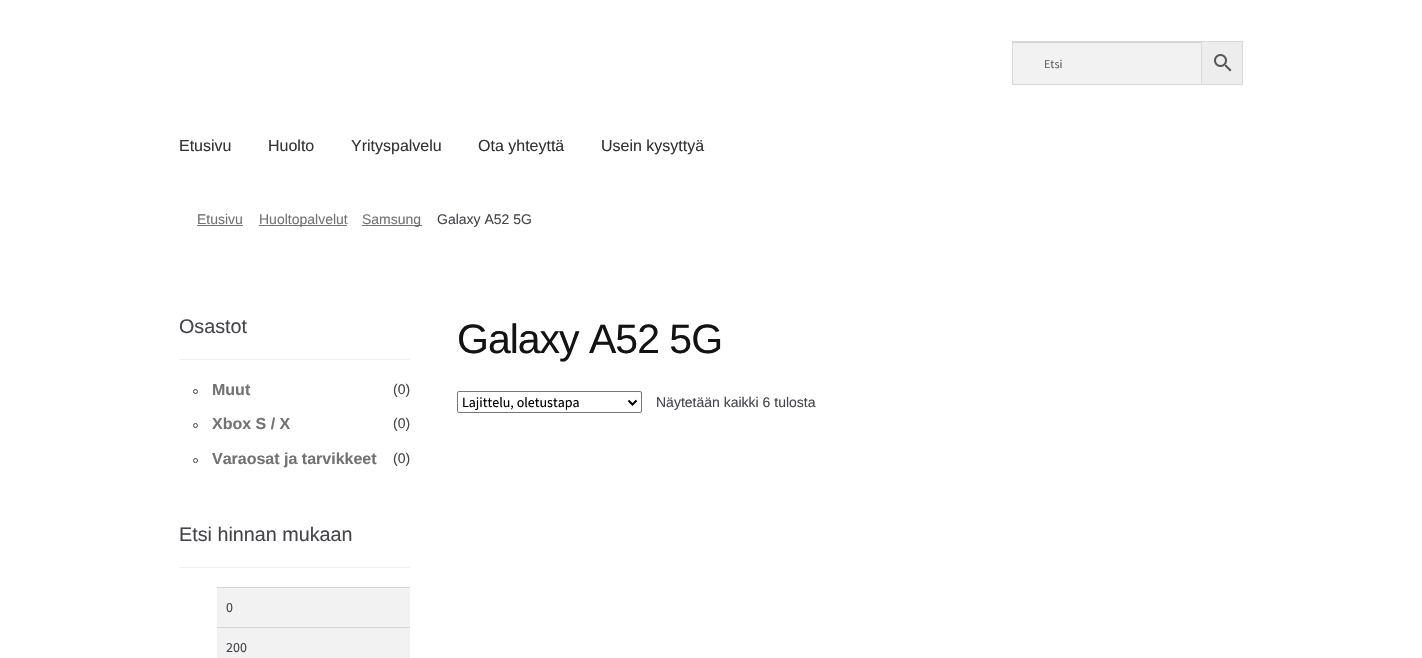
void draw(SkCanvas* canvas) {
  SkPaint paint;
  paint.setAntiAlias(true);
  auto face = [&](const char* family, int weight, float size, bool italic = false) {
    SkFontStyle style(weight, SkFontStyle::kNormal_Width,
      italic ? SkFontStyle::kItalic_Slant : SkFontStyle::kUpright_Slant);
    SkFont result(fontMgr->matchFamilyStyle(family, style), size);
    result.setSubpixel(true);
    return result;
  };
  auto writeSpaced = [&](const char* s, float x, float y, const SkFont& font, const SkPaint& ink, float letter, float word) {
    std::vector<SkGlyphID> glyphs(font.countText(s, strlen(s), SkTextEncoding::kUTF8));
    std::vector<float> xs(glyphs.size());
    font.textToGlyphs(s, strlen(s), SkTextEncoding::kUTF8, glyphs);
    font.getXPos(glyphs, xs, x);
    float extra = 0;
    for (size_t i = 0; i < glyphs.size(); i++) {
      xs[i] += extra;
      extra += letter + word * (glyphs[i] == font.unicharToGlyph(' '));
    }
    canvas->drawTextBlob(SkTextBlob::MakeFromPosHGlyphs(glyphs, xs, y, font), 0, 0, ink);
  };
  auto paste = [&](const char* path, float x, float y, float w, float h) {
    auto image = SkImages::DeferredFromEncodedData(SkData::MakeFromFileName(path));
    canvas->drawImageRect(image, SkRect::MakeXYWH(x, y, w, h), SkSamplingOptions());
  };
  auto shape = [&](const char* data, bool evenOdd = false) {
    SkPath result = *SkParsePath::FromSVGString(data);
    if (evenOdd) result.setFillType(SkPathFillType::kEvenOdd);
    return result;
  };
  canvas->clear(0xffffffff);
  paint.setColor(0xfff2f2f2);
  canvas->drawRect(SkRect::MakeXYWH(1013, 43, 188, 41), paint);
  paint.setColor(0xffd4d4d4);
  canvas->drawRect(SkRect::MakeXYWH(1013, 42, 188, 1), paint);
  paint.setColor(0xffededed);
  canvas->drawRect(SkRect::MakeXYWH(1201.5f, 41.5f, 41, 43), paint);
  paint.setStroke(true);
  paint.setStrokeWidth(1);
  paint.setColor(0xffd8d8d8);
  canvas->drawRect(SkRect::MakeXYWH(1201.5f, 41.5f, 41, 43), paint);
  canvas->drawRect(SkRect::MakeXYWH(1012.5f, 41.5f, 189, 43), paint);
  paste("img/1.png", 1214, 54, 18, 18);
  paint.setStroke(false);
  {
    const struct { float x, y, w, h; SkColor color; } items[] = {
      {197, 225, 46, 1, 0xff727272},
      {259, 225, 88, 1, 0xff727272},
      {362, 225, 60, 1, 0xff727272},
      {179, 359, 231, 1, 0xfff2f2f2},
    };
    for (auto [x, y, w, h, color] : items) {
      paint.setColor(color);
      canvas->drawRect(SkRect::MakeXYWH(x, y, w, h), paint);
    }
  }
  paint.setStroke(true);
  paint.setColor(0xff43454b);
  canvas->drawCircle(195.5f, 391.5f, 2, paint);
  canvas->drawCircle(195.5f, 425.5f, 2, paint);
  canvas->drawCircle(195.5f, 460.5f, 2, paint);
  paint.setStroke(false);
  {
    const struct { float x, y, w, h; SkColor color; } items[] = {
      {179, 567, 231, 1, 0xfff2f2f2},
      {217, 588, 193, 39, 0xfff2f2f2},
      {217, 587, 193, 1, 0xffd4d4d4},
      {217, 628, 193, 30, 0xfff2f2f2},
      {217, 627, 193, 1, 0xffd4d4d4},
    };
    for (auto [x, y, w, h, color] : items) {
      paint.setColor(color);
      canvas->drawRect(SkRect::MakeXYWH(x, y, w, h), paint);
    }
  }
  paint.setStroke(true);
  paint.setColor(0xff767676);
  canvas->drawRoundRect(SkRect::MakeXYWH(457.5f, 391.5f, 184, 21), 1.5f, 1.5f, paint);
  paint.setStrokeWidth(2);
  paint.setColor(0xff000000);
  canvas->drawPath(shape("M628.5 400.5L632.5 404.5L636.5 400.5"), paint);
  auto f0 = face("Source Sans Pro", 400, 12);
  paint.setStroke(false);
  paint.setColor(0xff616161);
  canvas->drawString("Etsi", 1044, 68, f0, paint);
  auto f1 = face("Liberation Sans", 400, 16);
  paint.setColor(0xff333333);
  {
    const struct { const char* s; float x, y; } items[] = {
      {"Etusivu", 179, 151},
      {"Huolto", 268, 151},
      {"Yrityspalvelu", 351, 151},
      {"Ota yhteyttä", 478, 151},
      {"Usein kysyttyä", 601, 151},
    };
    for (auto [s, x, y] : items) {
      canvas->drawString(s, x, y, f1, paint);
    }
  }
  auto f2 = face("Liberation Sans", 400, 14);
  paint.setColor(0xff727272);
  {
    const struct { const char* s; float x, y; } items[] = {
      {"Etusivu", 197, 224},
      {"Huoltopalvelut", 259, 224},
      {"Samsung", 362, 224},
    };
    for (auto [s, x, y] : items) {
      canvas->drawString(s, x, y, f2, paint);
    }
  }
  paint.setColor(0xff43454b);
  canvas->drawString("Galaxy A52 5G", 437, 224, f2, paint);
  auto f3 = face("Liberation Sans", 400, 19.75f);
  canvas->drawString("Osastot", 179, 333, f3, paint);
  auto f4 = face("Liberation Sans", 700, 16);
  paint.setColor(0xff727272);
  canvas->drawString("Muut", 212, 395, f4, paint);
  paint.setColor(0xff43454b);
  canvas->drawString("(0)", 393, 394, f2, paint);
  paint.setColor(0xff727272);
  canvas->drawString("Xbox S / X", 212, 429, f4, paint);
  paint.setColor(0xff43454b);
  canvas->drawString("(0)", 393, 428, f2, paint);
  paint.setColor(0xff727272);
  canvas->drawString("Varaosat ja tarvikkeet", 212, 464, f4, paint);
  paint.setColor(0xff43454b);
  canvas->drawString("(0)", 393, 463, f2, paint);
  canvas->drawString("Etsi hinnan mukaan", 179, 541, f3, paint);
  auto f5 = face("Source Sans Pro", 400, 14);
  canvas->drawString("0", 226, 612, f5, paint);
  canvas->drawString("200", 226, 652, f5, paint);
  auto f6 = face("Liberation Sans", 400, 41);
  paint.setColor(0xff131315);
  writeSpaced("Galaxy A52 5G", 457, 353, f6, paint, -1, 0);
  paint.setColor(0xff000000);
  canvas->drawString("Lajittelu, oletustapa", 462, 407, f5, paint);
  paint.setColor(0xff43454b);
  canvas->drawString("Näytetään kaikki 6 tulosta", 656, 407, f2, paint);
}
